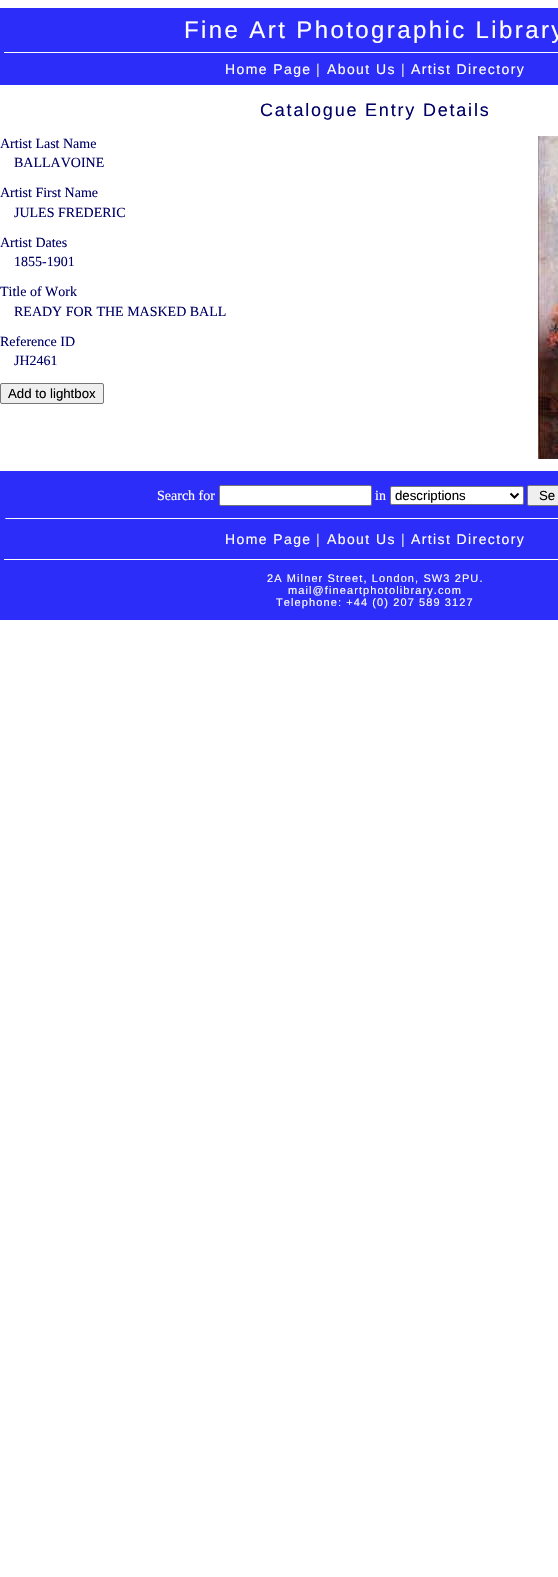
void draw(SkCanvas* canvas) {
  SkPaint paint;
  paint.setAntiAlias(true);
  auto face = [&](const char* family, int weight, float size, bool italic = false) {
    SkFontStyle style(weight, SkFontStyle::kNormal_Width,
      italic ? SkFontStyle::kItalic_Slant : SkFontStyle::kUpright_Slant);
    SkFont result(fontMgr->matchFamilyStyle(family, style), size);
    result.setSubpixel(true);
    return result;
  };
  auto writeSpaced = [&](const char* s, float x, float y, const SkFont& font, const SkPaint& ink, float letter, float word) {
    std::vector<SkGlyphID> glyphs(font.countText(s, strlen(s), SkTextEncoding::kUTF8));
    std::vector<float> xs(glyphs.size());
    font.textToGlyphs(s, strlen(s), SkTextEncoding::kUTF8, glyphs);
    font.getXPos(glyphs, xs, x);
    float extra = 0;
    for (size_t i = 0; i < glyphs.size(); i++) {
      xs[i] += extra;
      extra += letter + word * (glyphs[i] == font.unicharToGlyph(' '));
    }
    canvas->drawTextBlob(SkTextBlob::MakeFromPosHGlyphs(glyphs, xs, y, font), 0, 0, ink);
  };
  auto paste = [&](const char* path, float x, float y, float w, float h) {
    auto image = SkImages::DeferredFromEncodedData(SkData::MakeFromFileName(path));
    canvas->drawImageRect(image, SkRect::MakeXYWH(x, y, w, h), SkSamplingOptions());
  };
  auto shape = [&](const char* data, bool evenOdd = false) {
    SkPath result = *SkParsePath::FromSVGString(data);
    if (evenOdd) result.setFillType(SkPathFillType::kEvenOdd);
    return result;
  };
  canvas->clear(0xffffffff);
  paint.setColor(0xff2d2df9);
  canvas->drawRect(SkRect::MakeXYWH(0, 8, 558, 77), paint);
  paint.setColor(0xffffffff);
  canvas->drawRect(SkRect::MakeXYWH(4, 52, 554, 1), paint);
  paste("img/1.png", 538, 136, 20, 323);
  paint.setColor(0xffefefef);
  canvas->drawRoundRect(SkRect::MakeXYWH(0.5f, 383.5f, 103, 20), 1.5f, 1.5f, paint);
  paint.setStroke(true);
  paint.setStrokeWidth(1);
  paint.setColor(0xff767676);
  canvas->drawRoundRect(SkRect::MakeXYWH(0.5f, 383.5f, 103, 20), 1.5f, 1.5f, paint);
  paint.setStroke(false);
  paint.setColor(0xff2d2df9);
  canvas->drawRect(SkRect::MakeXYWH(0, 471, 558, 149), paint);
  paint.setColor(0xffffffff);
  canvas->drawPath(shape("M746 519H4L6 518H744Z"), paint);
  paint.setColor(0xff2d2df9);
  canvas->drawPath(shape("M4 519V475L6 477V518Z"), paint);
  paint.setColor(0xffffffff);
  canvas->drawRoundRect(SkRect::MakeXYWH(219.5f, 485.5f, 152, 20), 1.5f, 1.5f, paint);
  paint.setStroke(true);
  paint.setColor(0xff767676);
  canvas->drawRoundRect(SkRect::MakeXYWH(219.5f, 485.5f, 152, 20), 1.5f, 1.5f, paint);
  paint.setStroke(false);
  paint.setColor(0xffffffff);
  canvas->drawRoundRect(SkRect::MakeXYWH(390.5f, 486.5f, 133, 18), 1.5f, 1.5f, paint);
  paint.setStroke(true);
  paint.setColor(0xff767676);
  canvas->drawRoundRect(SkRect::MakeXYWH(390.5f, 486.5f, 133, 18), 1.5f, 1.5f, paint);
  paint.setStrokeWidth(2);
  paint.setColor(0xff000000);
  canvas->drawPath(shape("M510.5 493.5L514.5 497.5L518.5 493.5"), paint);
  paint.setStroke(false);
  paint.setColor(0xffefefef);
  canvas->drawRoundRect(SkRect::MakeXYWH(527.5f, 485.5f, 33, 20), 1.5f, 1.5f, paint);
  paint.setStroke(true);
  paint.setStrokeWidth(1);
  paint.setColor(0xff767676);
  canvas->drawRoundRect(SkRect::MakeXYWH(527.5f, 485.5f, 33, 20), 1.5f, 1.5f, paint);
  paint.setStroke(false);
  paint.setColor(0xffffffff);
  canvas->drawRect(SkRect::MakeXYWH(4, 559, 554, 1), paint);
  auto f0 = face("Liberation Sans", 400, 24);
  writeSpaced("Fine Art Photographic Library", 184, 38, f0, paint, 2.4f, 0);
  auto f1 = face("Liberation Sans", 400, 14);
  writeSpaced("Home Page", 225, 74, f1, paint, 1.4f, 0);
  paint.setColor(0xffdddddd);
  writeSpaced("|", 316, 74, f1, paint, 1.4f, 0);
  paint.setColor(0xffffffff);
  writeSpaced("About Us", 327, 74, f1, paint, 1.4f, 0);
  paint.setColor(0xffdddddd);
  writeSpaced("|", 401, 74, f1, paint, 1.4f, 0);
  paint.setColor(0xffffffff);
  writeSpaced("Artist Directory", 411, 74, f1, paint, 1.4f, 0);
  auto f2 = face("Liberation Sans", 400, 18);
  paint.setColor(0xff000066);
  writeSpaced("Catalogue Entry Details", 260, 116, f2, paint, 1.8f, 0);
  auto f3 = face("Liberation Serif", 400, 14);
  {
    const struct { const char* s; float x, y; } items[] = {
      {"Artist Last Name", 0, 148},
      {"BALLAVOINE", 14, 167},
      {"Artist First Name", 0, 197},
      {"JULES FREDERIC", 14, 217},
      {"Artist Dates", 0, 247},
      {"1855-1901", 14, 266},
      {"Title of Work", 0, 296},
      {"READY FOR THE MASKED BALL", 14, 316},
      {"Reference ID", 0, 346},
      {"JH2461", 14, 365},
    };
    for (auto [s, x, y] : items) {
      canvas->drawString(s, x, y, f3, paint);
    }
  }
  auto f4 = face("Liberation Sans", 400, 13.25f);
  paint.setColor(0xff000000);
  canvas->drawString("Add to lightbox", 8, 398, f4, paint);
  paint.setColor(0xffffffff);
  canvas->drawString("Search for", 157, 500, f3, paint);
  canvas->drawString("in", 375, 500, f3, paint);
  paint.setColor(0xff000000);
  canvas->drawString("descriptions", 395, 500, f4, paint);
  canvas->drawString("Se", 539, 500, f4, paint);
  paint.setColor(0xffffffff);
  writeSpaced("Home Page", 225, 544, f1, paint, 1.4f, 0);
  paint.setColor(0xffdddddd);
  writeSpaced("|", 316, 544, f1, paint, 1.4f, 0);
  paint.setColor(0xffffffff);
  writeSpaced("About Us", 327, 544, f1, paint, 1.4f, 0);
  paint.setColor(0xffdddddd);
  writeSpaced("|", 401, 544, f1, paint, 1.4f, 0);
  paint.setColor(0xffffffff);
  writeSpaced("Artist Directory", 411, 544, f1, paint, 1.4f, 0);
  auto f5 = face("Liberation Sans", 400, 11);
  {
    const struct { const char* s; float x, y; } items[] = {
      {"2A Milner Street, London, SW3 2PU.", 267, 582},
      {"mail@fineartphotolibrary.com", 288, 594},
      {"Telephone: +44 (0) 207 589 3127", 276, 606},
    };
    for (auto [s, x, y] : items) {
      writeSpaced(s, x, y, f5, paint, 1.1f, 0);
    }
  }
}
